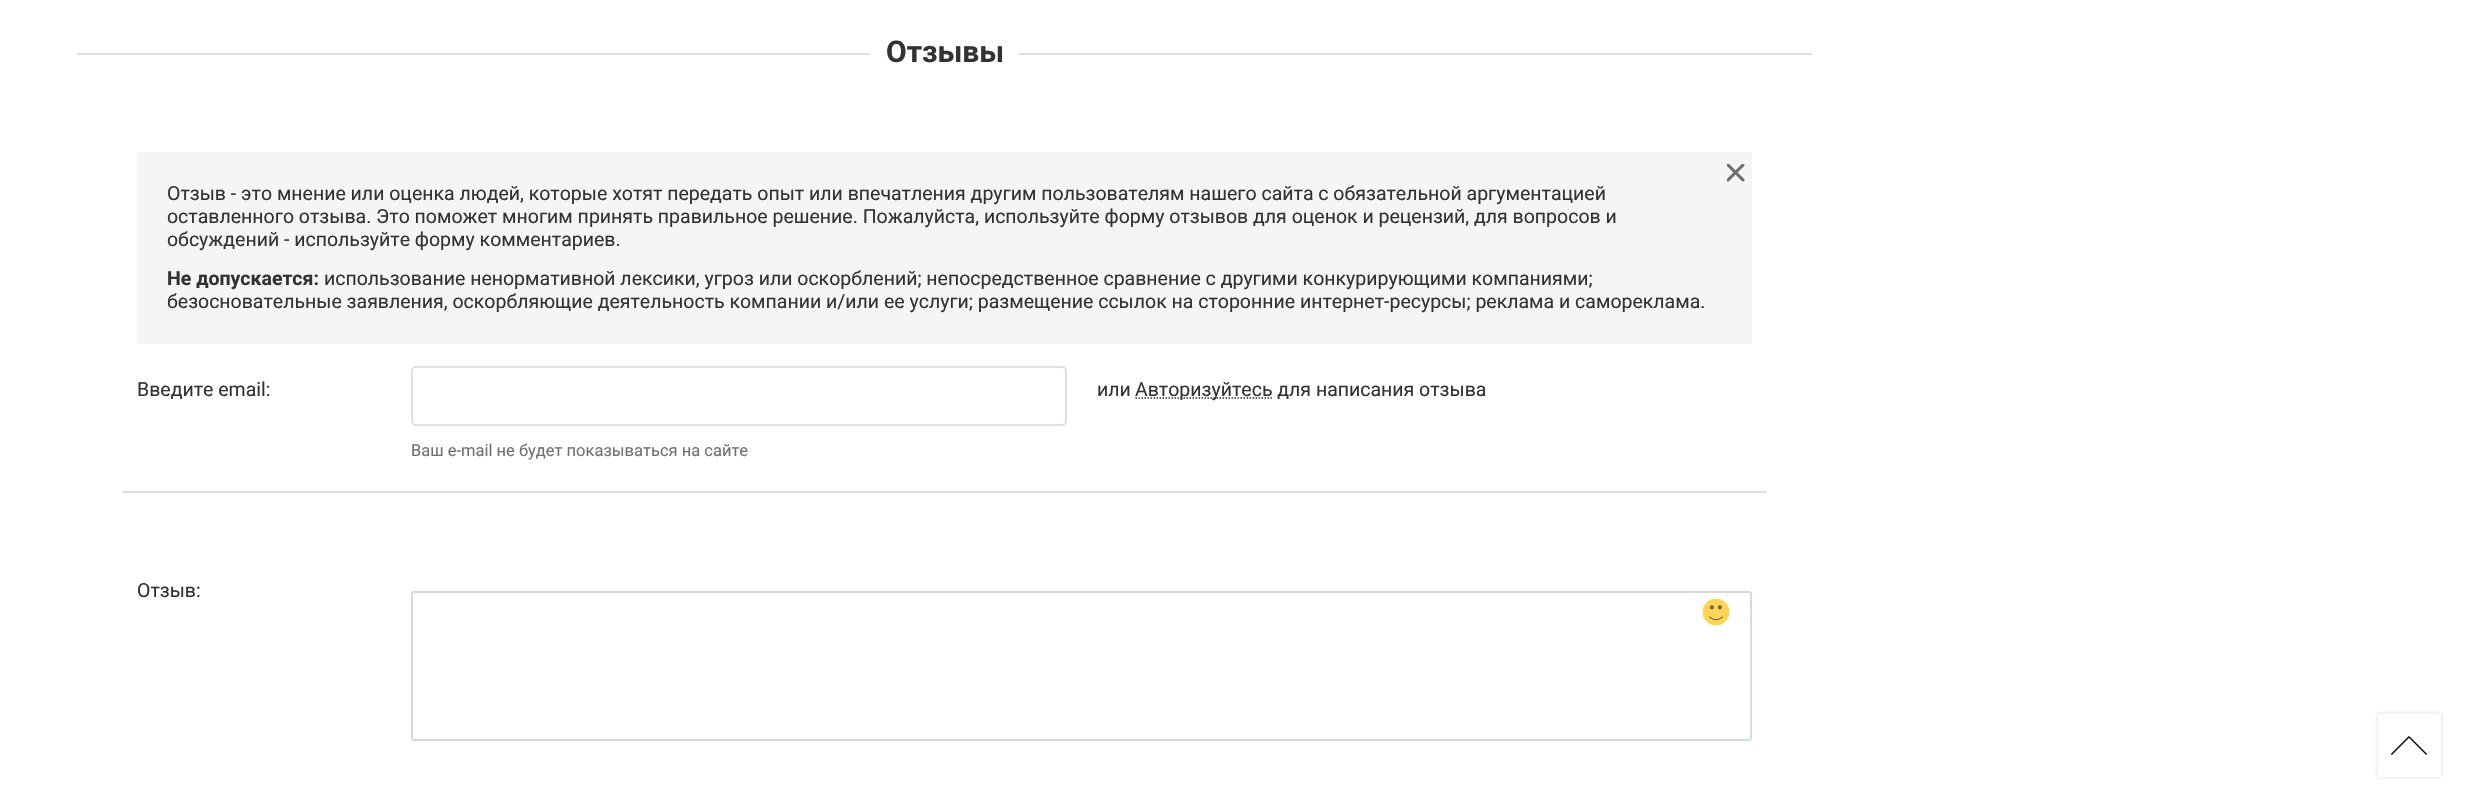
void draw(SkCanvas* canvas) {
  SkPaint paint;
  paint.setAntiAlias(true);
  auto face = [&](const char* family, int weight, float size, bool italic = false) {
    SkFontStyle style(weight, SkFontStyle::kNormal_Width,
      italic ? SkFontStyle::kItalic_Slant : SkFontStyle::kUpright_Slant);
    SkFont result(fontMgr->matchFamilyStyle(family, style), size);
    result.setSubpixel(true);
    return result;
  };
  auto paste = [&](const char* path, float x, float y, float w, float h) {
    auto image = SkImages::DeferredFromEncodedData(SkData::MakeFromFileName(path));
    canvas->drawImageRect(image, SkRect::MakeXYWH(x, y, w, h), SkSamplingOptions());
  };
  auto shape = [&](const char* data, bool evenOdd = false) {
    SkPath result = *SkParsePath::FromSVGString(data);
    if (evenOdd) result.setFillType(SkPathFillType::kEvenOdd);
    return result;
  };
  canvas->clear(0xffffffff);
  {
    const struct { float x, y, w, h; SkColor color; } items[] = {
      {77, 53, 793, 2, 0xffe0e0e0},
      {1019, 53, 793, 2, 0xffe0e0e0},
      {137, 152, 1615, 192, 0xfff5f5f5},
    };
    for (auto [x, y, w, h, color] : items) {
      paint.setColor(color);
      canvas->drawRect(SkRect::MakeXYWH(x, y, w, h), paint);
    }
  }
  paste("img/1.png", 1727, 164, 18, 18);
  paint.setColor(0xffe0e0e0);
  canvas->drawRect(SkRect::MakeXYWH(122, 491, 1645, 2), paint);
  paint.setStroke(true);
  paint.setStrokeWidth(1.5f);
  paint.setColor(0xff323232);
  paint.setPathEffect(SkDashPathEffect::Make({{1.5f, 1.5f}}, 0));
  canvas->drawPath(shape("M1135.5 398H1273"), paint);
  paint.setPathEffect(nullptr);
  paint.setStrokeWidth(2);
  paint.setColor(0xffe0e0e0);
  canvas->drawRoundRect(SkRect::MakeXYWH(412, 367, 654, 58), 4, 4, paint);
  paint.setColor(0xffd2dbe3);
  canvas->drawRoundRect(SkRect::MakeXYWH(412, 592, 1339, 148), 2, 2, paint);
  paste("img/2.png", 1703, 599, 27, 27);
  paint.setStroke(false);
  paint.setColor(0x40636363);
  paint.setMaskFilter(SkMaskFilter::MakeBlur(kNormal_SkBlurStyle, 2));
  canvas->drawRect(SkRect::MakeXYWH(2378, 714, 63, 63), paint);
  paint.setMaskFilter(nullptr);
  paint.setColor(0xffffffff);
  canvas->drawRect(SkRect::MakeXYWH(2378, 714, 63, 63), paint);
  paste("img/3.png", 2391, 736, 36, 19);
  auto f0 = face("Roboto", 700, 30);
  paint.setColor(0xff323232);
  canvas->drawString("Отзывы", 886, 62, f0, paint);
  auto f1 = face("Roboto", 400, 19.5f);
  {
    const struct { const char* s; float x, y; } items[] = {
      {"Отзыв - это мнение или оценка людей, которые хотят передать опыт или впечатления другим пользователям нашего сайта с обязательной аргументацией", 167, 200},
      {"оставленного отзыва. Это поможет многим принять правильное решение. Пожалуйста, используйте форму отзывов для оценок и рецензий, для вопросов и", 167, 223},
      {"обсуждений - используйте форму комментариев.", 167, 246},
    };
    for (auto [s, x, y] : items) {
      canvas->drawString(s, x, y, f1, paint);
    }
  }
  auto f2 = face("Roboto", 700, 19.5f);
  canvas->drawString("Не допускается:", 167, 285, f2, paint);
  {
    const struct { const char* s; float x, y; } items[] = {
      {"использование ненормативной лексики, угроз или оскорблений; непосредственное сравнение с другими конкурирующими компаниями;", 324, 285},
      {"безосновательные заявления, оскорбляющие деятельность компании и/или ее услуги; размещение ссылок на сторонние интернет-ресурсы; реклама и самореклама.", 167, 308},
      {"Введите email:", 137, 396},
      {"или", 1097, 396},
      {"Авторизуйтесь для написания отзыва", 1135, 396},
    };
    for (auto [s, x, y] : items) {
      canvas->drawString(s, x, y, f1, paint);
    }
  }
  auto f3 = face("Roboto", 400, 16.5f);
  paint.setColor(0xff707070);
  canvas->drawString("Ваш e-mail не будет показываться на сайте", 411, 456, f3, paint);
  paint.setColor(0xff323232);
  canvas->drawString("Отзыв:", 137, 597, f1, paint);
}
